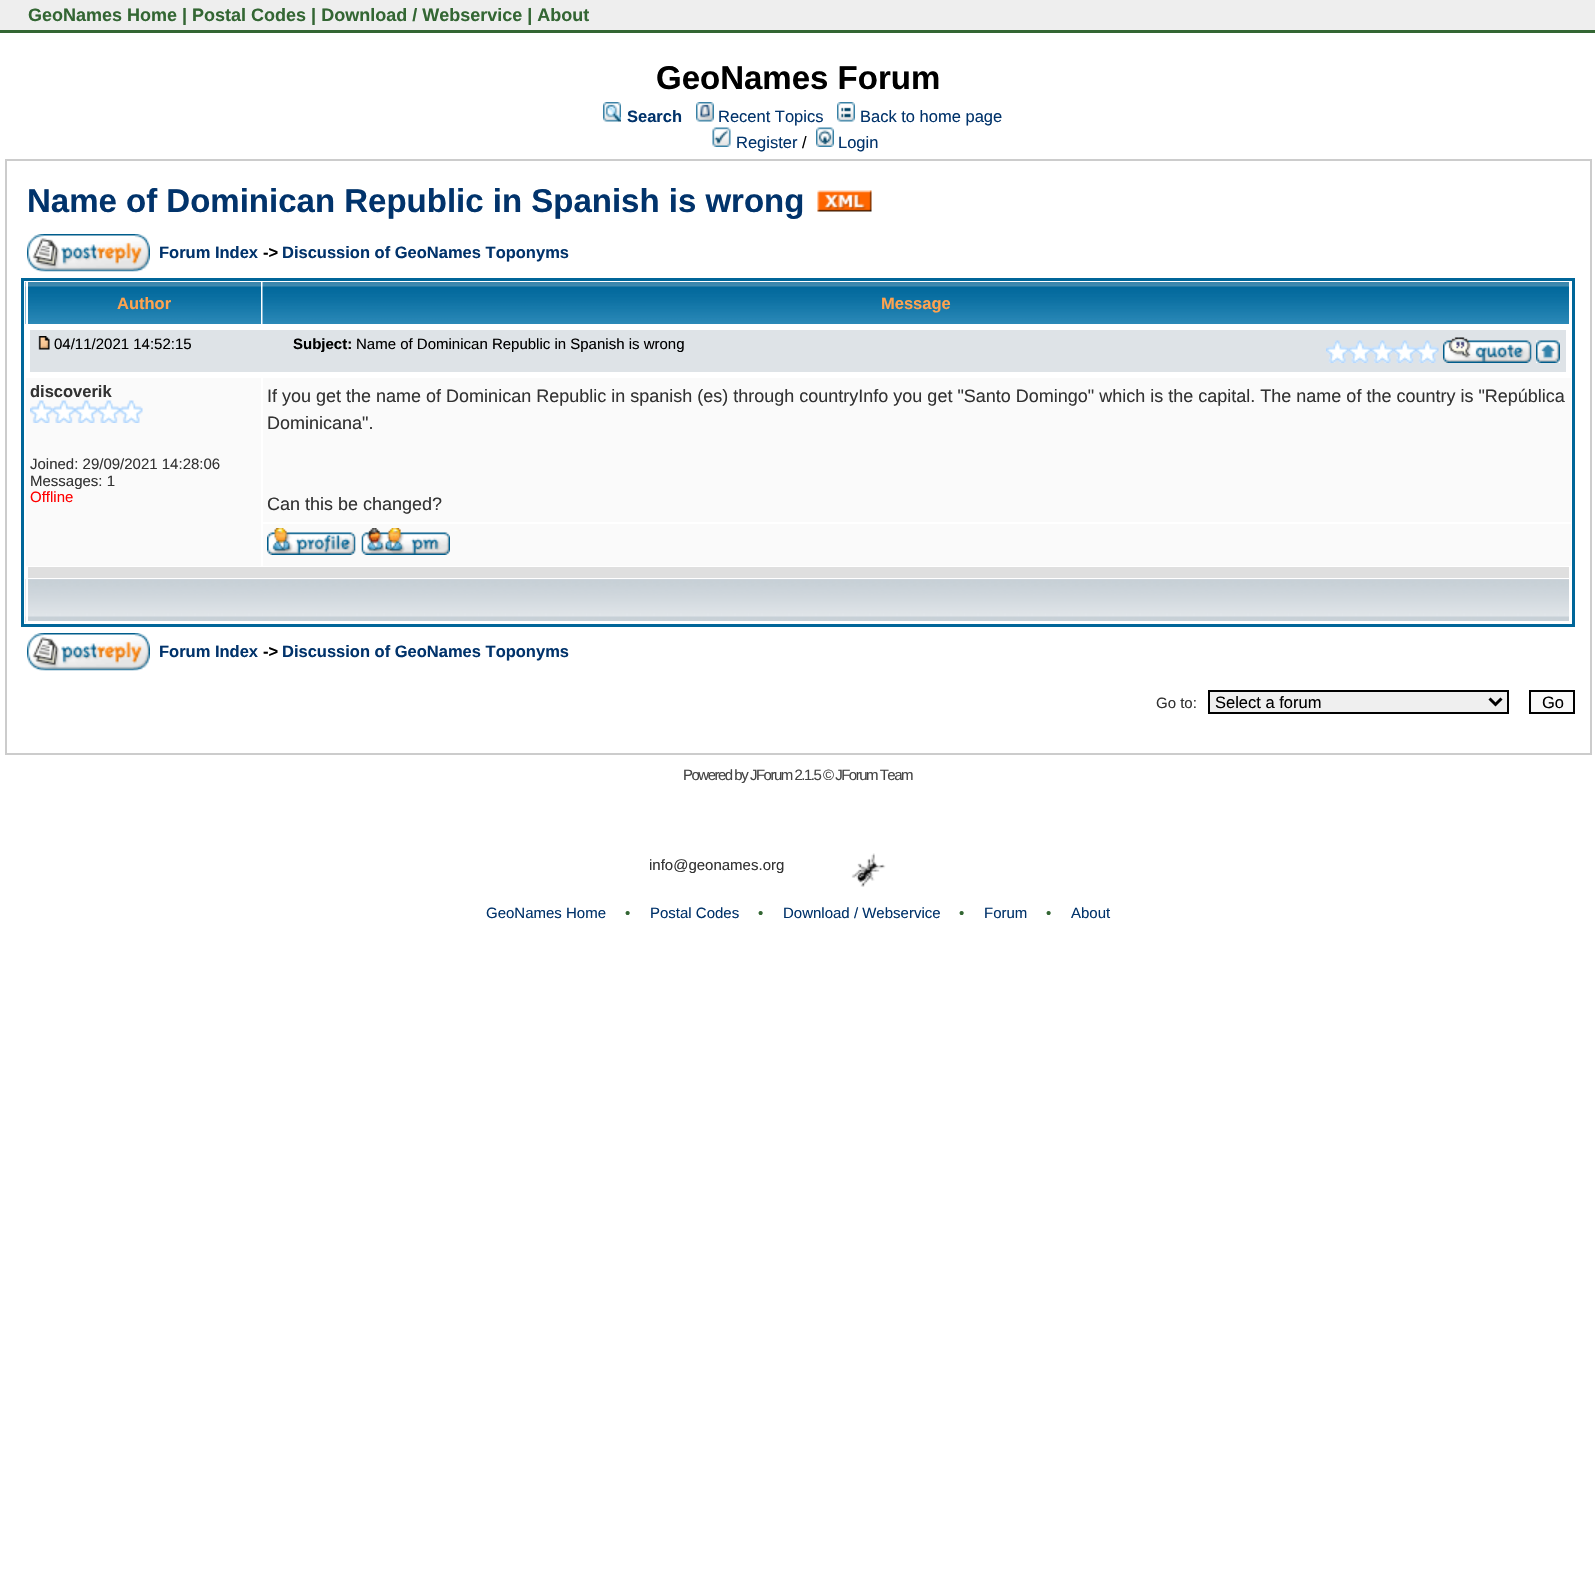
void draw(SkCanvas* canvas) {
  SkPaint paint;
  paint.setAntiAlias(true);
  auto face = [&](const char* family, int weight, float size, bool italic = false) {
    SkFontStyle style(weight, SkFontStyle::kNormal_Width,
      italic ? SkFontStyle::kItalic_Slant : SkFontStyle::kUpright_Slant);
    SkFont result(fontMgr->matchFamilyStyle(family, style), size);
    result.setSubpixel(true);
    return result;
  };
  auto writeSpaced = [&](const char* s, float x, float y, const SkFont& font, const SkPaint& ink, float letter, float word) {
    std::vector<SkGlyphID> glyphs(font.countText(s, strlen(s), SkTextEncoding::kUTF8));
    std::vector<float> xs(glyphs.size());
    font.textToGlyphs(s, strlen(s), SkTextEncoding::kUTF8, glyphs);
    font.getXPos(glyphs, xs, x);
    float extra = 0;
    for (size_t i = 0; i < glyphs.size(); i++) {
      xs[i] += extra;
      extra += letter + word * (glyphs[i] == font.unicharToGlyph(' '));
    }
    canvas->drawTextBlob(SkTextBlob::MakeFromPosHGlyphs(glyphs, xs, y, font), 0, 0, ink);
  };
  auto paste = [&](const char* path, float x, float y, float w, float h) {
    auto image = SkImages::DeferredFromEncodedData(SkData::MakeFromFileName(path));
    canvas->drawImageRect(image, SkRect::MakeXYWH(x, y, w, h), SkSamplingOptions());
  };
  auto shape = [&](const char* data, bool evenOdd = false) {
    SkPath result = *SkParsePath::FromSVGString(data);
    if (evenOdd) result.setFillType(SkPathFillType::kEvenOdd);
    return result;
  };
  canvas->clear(0xffffffff);
  paint.setColor(0xffeeeeee);
  canvas->drawRect(SkRect::MakeXYWH(0, 0, 1595, 30), paint);
  paint.setColor(0xff336633);
  canvas->drawRect(SkRect::MakeXYWH(0, 30, 1595, 3), paint);
  paste("img/1.png", 603, 102, 18, 20);
  paste("img/2.png", 696, 102, 18, 20);
  paste("img/3.png", 837, 102, 18, 20);
  paste("img/4.png", 712, 127, 19, 20);
  paste("img/5.png", 816, 127, 18, 20);
  paint.setStroke(true);
  paint.setStrokeWidth(2);
  paint.setColor(0xffcccccc);
  canvas->drawRect(SkRect::MakeXYWH(6, 160, 1585, 594), paint);
  paste("img/6.png", 817, 190, 55, 22);
  paste("img/7.png", 27, 234, 123, 38);
  paint.setStrokeWidth(3);
  paint.setColor(0xff006699);
  canvas->drawRect(SkRect::MakeXYWH(22.5f, 279.5f, 1551, 346), paint);
  paste("img/8.png", 25, 282, 236, 42);
  paint.setStroke(false);
  paint.setColor(0xffffffff);
  canvas->drawRect(SkRect::MakeXYWH(26, 282, 2, 42), paint);
  paste("img/9.png", 262, 282, 1307, 42);
  paint.setColor(0xffdee3e7);
  canvas->drawRect(SkRect::MakeXYWH(30, 330, 1536, 42), paint);
  paste("img/10.png", 38, 336, 12, 14);
  paste("img/11.png", 1326, 340, 23, 23);
  paste("img/12.png", 1348, 340, 23, 23);
  paste("img/13.png", 1371, 340, 23, 23);
  paste("img/12.png", 1393, 340, 23, 23);
  paste("img/13.png", 1416, 340, 23, 23);
  paste("img/14.png", 1443, 337, 89, 26);
  paste("img/15.png", 1536, 340, 24, 23);
  paint.setColor(0xfffafafa);
  canvas->drawRect(SkRect::MakeXYWH(26, 378, 235, 188), paint);
  paste("img/16.png", 30, 400, 23, 23);
  paste("img/17.png", 52, 400, 23, 23);
  paste("img/16.png", 75, 400, 23, 23);
  paste("img/17.png", 97, 400, 23, 23);
  paste("img/16.png", 120, 400, 23, 23);
  canvas->drawRect(SkRect::MakeXYWH(263, 378, 1308, 144), paint);
  canvas->drawRect(SkRect::MakeXYWH(263, 524, 1308, 42), paint);
  paste("img/18.png", 267, 528, 89, 27);
  paste("img/19.png", 361, 528, 89, 27);
  paint.setColor(0xffdfdfdf);
  canvas->drawRect(SkRect::MakeXYWH(28, 567, 1541, 11), paint);
  paste("img/20.png", 25, 579, 1544, 44);
  paint.setColor(0xffffffff);
  canvas->drawRect(SkRect::MakeXYWH(26, 621, 1545, 2), paint);
  canvas->drawRect(SkRect::MakeXYWH(26, 579, 2, 44), paint);
  paste("img/7.png", 27, 633, 123, 38);
  paint.setColor(0xffefefef);
  canvas->drawRect(SkRect::MakeXYWH(1209, 691, 299, 22), paint);
  paint.setStroke(true);
  paint.setStrokeWidth(2);
  paint.setColor(0xff000000);
  canvas->drawRect(SkRect::MakeXYWH(1209, 691, 299, 22), paint);
  paint.setStrokeWidth(3);
  canvas->drawPath(shape("M1489.5 698.5L1495.5 704.5L1501.5 698.5"), paint);
  paint.setStroke(false);
  paint.setColor(0xfffafafa);
  canvas->drawRect(SkRect::MakeXYWH(1530, 691, 44, 22), paint);
  paint.setStroke(true);
  paint.setStrokeWidth(2);
  paint.setColor(0xff000000);
  canvas->drawRect(SkRect::MakeXYWH(1530, 691, 44, 22), paint);
  paste("img/21.png", 851, 853, 35, 34);
  auto f0 = face("Liberation Sans", 700, 18);
  paint.setStroke(false);
  paint.setColor(0xff336633);
  canvas->drawString("GeoNames Home | Postal Codes | Download / Webservice | About", 28, 21, f0, paint);
  auto f1 = face("Liberation Sans", 700, 33);
  paint.setColor(0xff000000);
  canvas->drawString("GeoNames Forum", 656, 89, f1, paint);
  auto f2 = face("Liberation Sans", 700, 16.5f);
  paint.setColor(0xff01336b);
  canvas->drawString("Search", 627, 122, f2, paint);
  auto f3 = face("Liberation Sans", 400, 16.5f);
  {
    const struct { const char* s; float x, y; } items[] = {
      {"Recent Topics", 718, 122},
      {"Back to home page", 860, 122},
      {"Register", 736, 148},
    };
    for (auto [s, x, y] : items) {
      canvas->drawString(s, x, y, f3, paint);
    }
  }
  paint.setColor(0xff000000);
  canvas->drawString("/", 802, 148, f3, paint);
  paint.setColor(0xff01336b);
  canvas->drawString("Login", 838, 148, f3, paint);
  canvas->drawString("Name of Dominican Republic in Spanish is wrong", 27, 212, f1, paint);
  canvas->drawString("Forum Index", 159, 258, f2, paint);
  paint.setColor(0xff000000);
  canvas->drawString("->", 263, 258, f2, paint);
  paint.setColor(0xff01336b);
  canvas->drawString("Discussion of GeoNames Toponyms", 282, 258, f2, paint);
  paint.setColor(0xffffa34f);
  canvas->drawString("Author", 117, 309, f2, paint);
  canvas->drawString("Message", 881, 309, f2, paint);
  auto f4 = face("Liberation Sans", 400, 15);
  paint.setColor(0xff000000);
  canvas->drawString("04/11/2021 14:52:15", 54, 349, f4, paint);
  auto f5 = face("Liberation Sans", 700, 15);
  canvas->drawString("Subject:", 293, 349, f5, paint);
  canvas->drawString("Name of Dominican Republic in Spanish is wrong", 356, 349, f4, paint);
  paint.setColor(0xff333333);
  canvas->drawString("discoverik", 30, 397, f2, paint);
  canvas->drawString("Joined: 29/09/2021 14:28:06", 30, 469, f4, paint);
  canvas->drawString("Messages: 1", 30, 486, f4, paint);
  paint.setColor(0xffff0000);
  canvas->drawString("Offline", 30, 502, f4, paint);
  auto f6 = face("Liberation Sans", 400, 18);
  paint.setColor(0xff333333);
  {
    const struct { const char* s; float x, y; } items[] = {
      {"If you get the name of Dominican Republic in spanish (es) through countryInfo you get \"Santo Domingo\" which is the capital. The name of the country is \"República", 267, 402},
      {"Dominicana\".", 267, 429},
      {"Can this be changed?", 267, 510},
    };
    for (auto [s, x, y] : items) {
      canvas->drawString(s, x, y, f6, paint);
    }
  }
  paint.setColor(0xff01336b);
  canvas->drawString("Forum Index", 159, 657, f2, paint);
  paint.setColor(0xff000000);
  canvas->drawString("->", 263, 657, f2, paint);
  paint.setColor(0xff01336b);
  canvas->drawString("Discussion of GeoNames Toponyms", 282, 657, f2, paint);
  paint.setColor(0xff333333);
  canvas->drawString("Go to:", 1156, 708, f4, paint);
  paint.setColor(0xff000000);
  canvas->drawString("Select a forum", 1215, 708, f3, paint);
  canvas->drawString("Go", 1542, 708, f3, paint);
  paint.setColor(0xff444444);
  writeSpaced("Powered by JForum 2.1.5 © JForum Team", 683, 780, f4, paint, -1.5f, 0);
  paint.setColor(0xff333333);
  canvas->drawString("info@geonames.org", 649, 870, f4, paint);
  paint.setColor(0xff01336b);
  canvas->drawString("GeoNames Home", 486, 918, f4, paint);
  paint.setColor(0xff336633);
  canvas->drawString("•", 625, 918, f4, paint);
  paint.setColor(0xff01336b);
  canvas->drawString("Postal Codes", 650, 918, f4, paint);
  paint.setColor(0xff336633);
  canvas->drawString("•", 758, 918, f4, paint);
  paint.setColor(0xff01336b);
  canvas->drawString("Download / Webservice", 783, 918, f4, paint);
  paint.setColor(0xff336633);
  canvas->drawString("•", 959, 918, f4, paint);
  paint.setColor(0xff01336b);
  canvas->drawString("Forum", 984, 918, f4, paint);
  paint.setColor(0xff336633);
  canvas->drawString("•", 1046, 918, f4, paint);
  paint.setColor(0xff01336b);
  canvas->drawString("About", 1071, 918, f4, paint);
}
